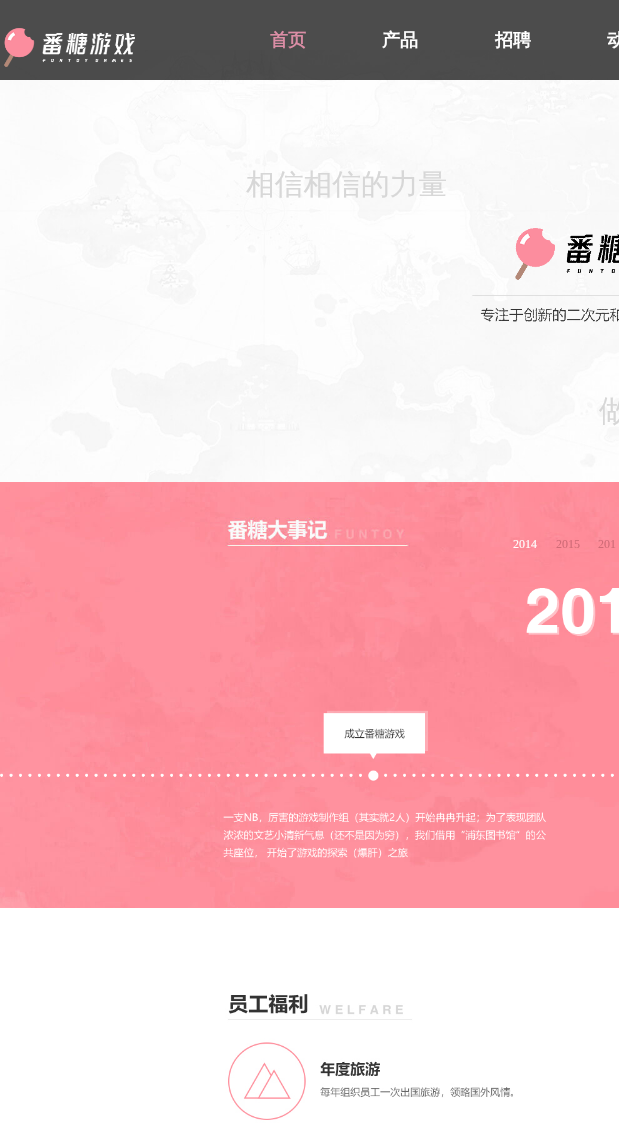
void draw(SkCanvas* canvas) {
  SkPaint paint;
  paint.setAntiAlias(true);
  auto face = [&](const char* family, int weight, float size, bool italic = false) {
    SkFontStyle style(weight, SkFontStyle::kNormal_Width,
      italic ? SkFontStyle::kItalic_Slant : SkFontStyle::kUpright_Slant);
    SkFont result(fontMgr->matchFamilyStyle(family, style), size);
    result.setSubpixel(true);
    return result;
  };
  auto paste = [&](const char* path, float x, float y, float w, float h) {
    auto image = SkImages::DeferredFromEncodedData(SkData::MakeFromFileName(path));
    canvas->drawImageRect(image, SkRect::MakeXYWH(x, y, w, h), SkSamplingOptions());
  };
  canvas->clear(0xffffffff);
  paste("img/2.png", 0, 0, 619, 482);
  paint.setColor(0xb3000000);
  canvas->drawRect(SkRect::MakeXYWH(0, 0, 619, 80), paint);
  paste("img/1.png", 4, 28, 131, 39);
  paste("img/3.png", 472, 228, 147, 94);
  paste("img/4.png", 0, 482, 619, 426);
  paste("img/5.png", 0, 588, 619, 270);
  paste("img/6.png", 0, 908, 619, 221);
  auto f0 = face("WenQuanYi Zen Hei", 700, 18);
  paint.setColor(0xffdb8da5);
  canvas->drawString("首页", 270, 46, f0, paint);
  paint.setColor(0xffffffff);
  {
    const struct { const char* s; float x, y; } items[] = {
      {"产品", 382, 46},
      {"招聘", 495, 46},
      {"动", 607, 46},
    };
    for (auto [s, x, y] : items) {
      canvas->drawString(s, x, y, f0, paint);
    }
  }
  auto f1 = face("WenQuanYi Zen Hei", 500, 28.75f);
  paint.setColor(0xffd7d7d7);
  canvas->drawString("相信相信的力量", 246, 194, f1, paint);
  auto f2 = face("WenQuanYi Zen Hei", 500, 30);
  canvas->drawString("做", 599, 421, f2, paint);
  auto f3 = face("Liberation Serif", 400, 12);
  paint.setColor(0xffffffff);
  canvas->drawString("2014", 513, 548, f3, paint);
  paint.setColor(0xffcf6a76);
  canvas->drawString("2015", 556, 548, f3, paint);
  canvas->drawString("201", 598, 548, f3, paint);
}
